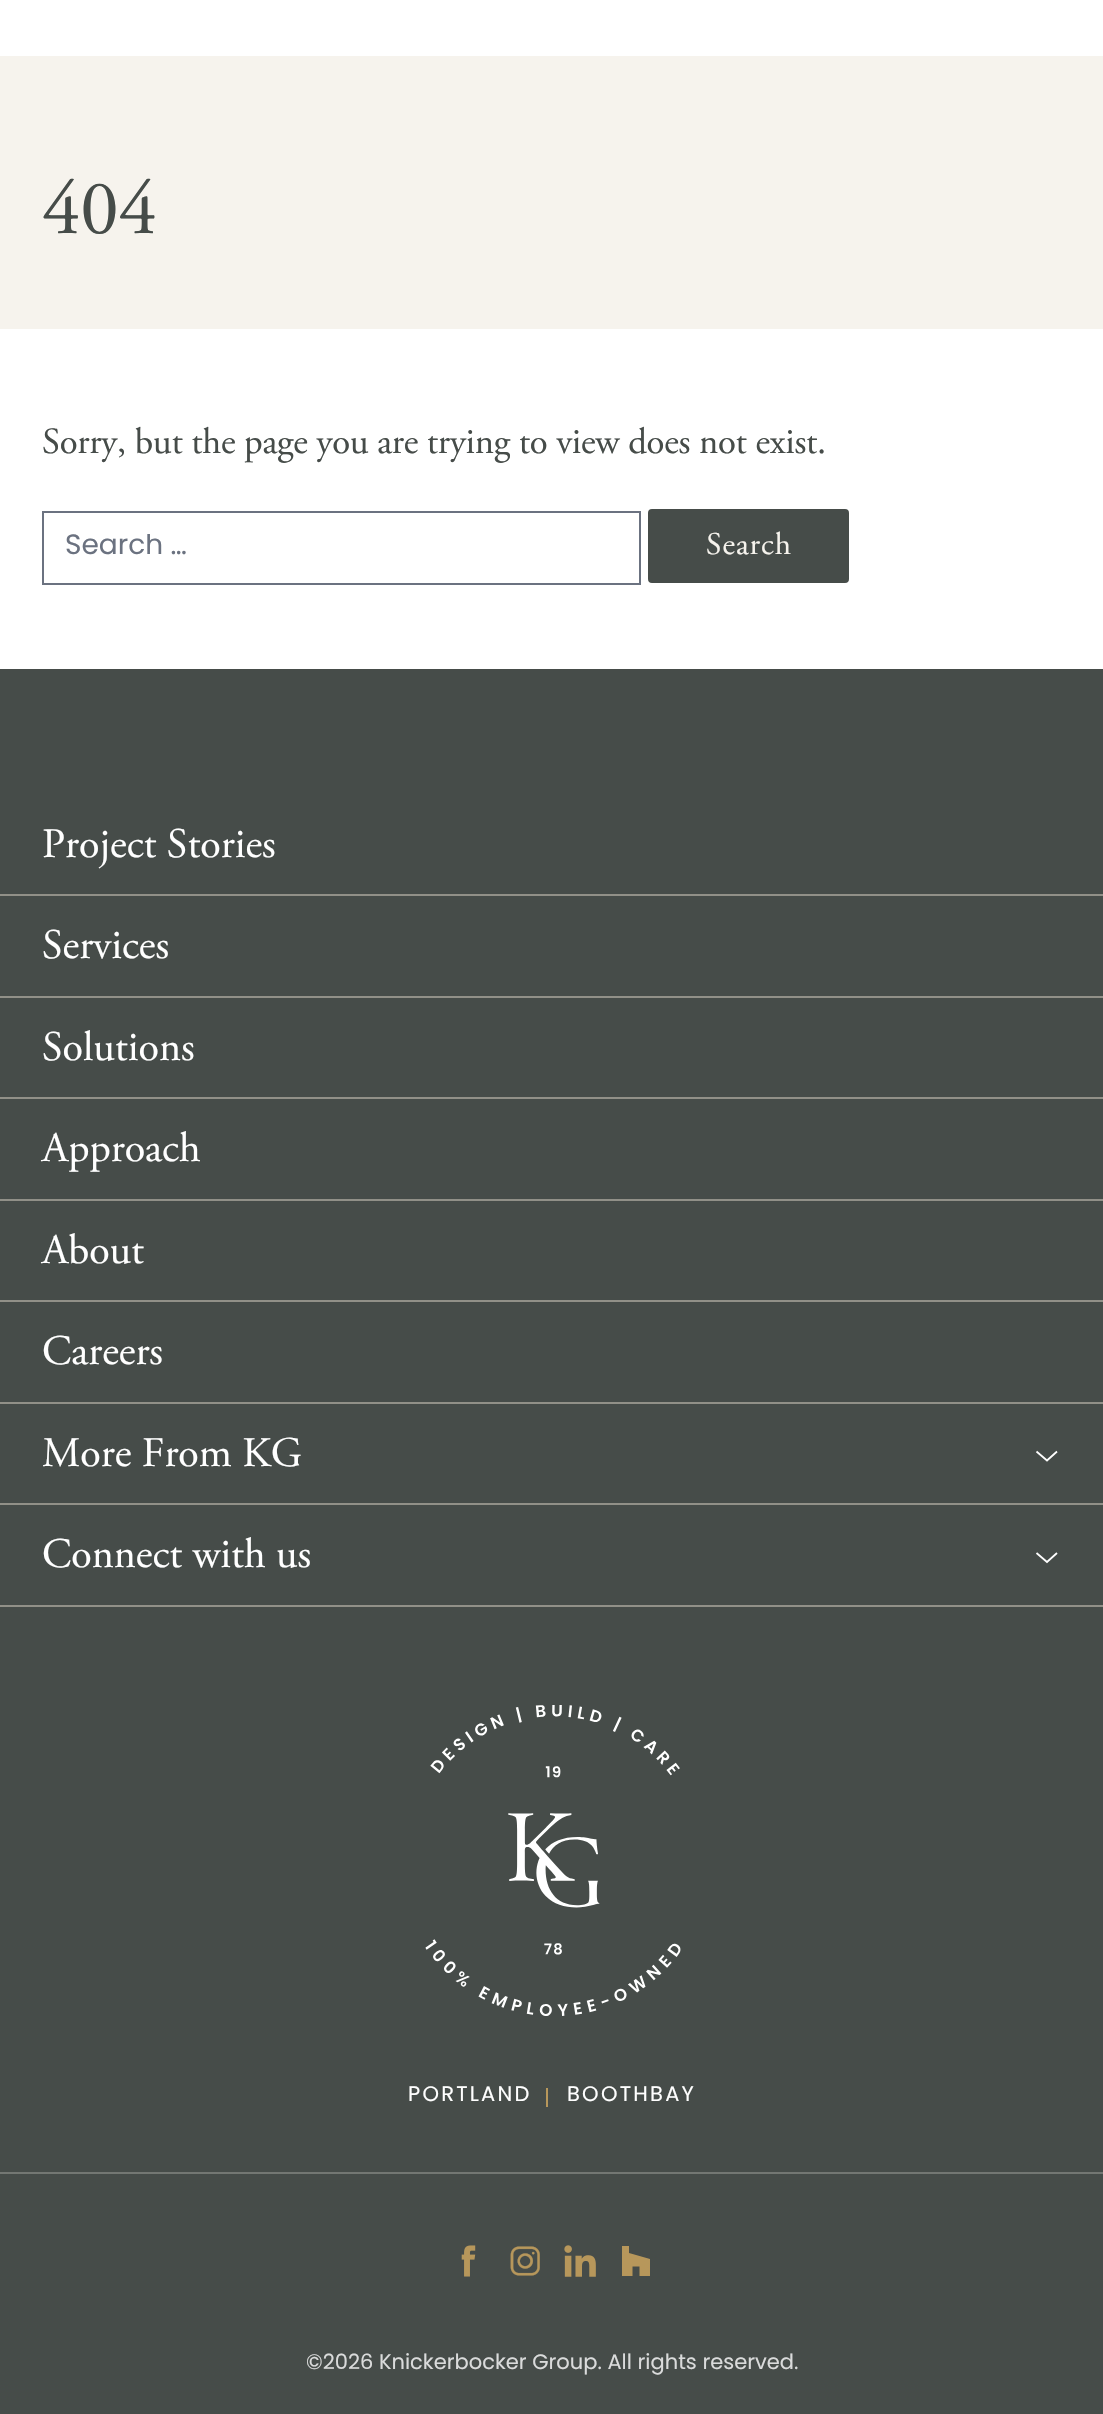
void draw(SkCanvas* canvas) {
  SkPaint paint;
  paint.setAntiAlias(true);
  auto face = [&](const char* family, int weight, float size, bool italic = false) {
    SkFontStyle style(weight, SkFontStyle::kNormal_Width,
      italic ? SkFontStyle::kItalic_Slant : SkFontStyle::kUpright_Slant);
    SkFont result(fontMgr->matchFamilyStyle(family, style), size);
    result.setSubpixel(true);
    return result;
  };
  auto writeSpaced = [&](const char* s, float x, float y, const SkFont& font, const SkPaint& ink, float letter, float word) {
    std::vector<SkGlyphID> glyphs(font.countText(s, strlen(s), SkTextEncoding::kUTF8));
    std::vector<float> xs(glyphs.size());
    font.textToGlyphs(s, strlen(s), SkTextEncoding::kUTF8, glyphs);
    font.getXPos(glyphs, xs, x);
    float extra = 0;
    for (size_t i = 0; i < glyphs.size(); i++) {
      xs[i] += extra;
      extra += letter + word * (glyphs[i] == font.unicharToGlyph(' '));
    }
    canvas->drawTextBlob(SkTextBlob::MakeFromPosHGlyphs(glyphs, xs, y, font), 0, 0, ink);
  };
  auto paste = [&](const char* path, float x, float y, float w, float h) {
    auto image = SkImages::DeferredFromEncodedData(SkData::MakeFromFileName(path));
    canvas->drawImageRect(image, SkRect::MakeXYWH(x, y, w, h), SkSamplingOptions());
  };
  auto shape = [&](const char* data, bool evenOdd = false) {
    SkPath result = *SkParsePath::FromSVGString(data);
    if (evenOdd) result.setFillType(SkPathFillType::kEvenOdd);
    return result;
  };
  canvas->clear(0xffffffff);
  paint.setColor(0xfff6f3ed);
  canvas->drawRect(SkRect::MakeXYWH(0, 56, 1103, 273), paint);
  paint.setStroke(true);
  paint.setStrokeWidth(2);
  paint.setColor(0xff6b7280);
  canvas->drawRect(SkRect::MakeXYWH(43, 512, 597, 72), paint);
  paint.setStroke(false);
  paint.setColor(0xff464c49);
  canvas->drawRoundRect(SkRect::MakeXYWH(649, 510, 199, 72), 3, 3, paint);
  paint.setStroke(true);
  canvas->drawRoundRect(SkRect::MakeXYWH(649, 510, 199, 72), 3, 3, paint);
  paint.setStroke(false);
  {
    const struct { float x, y, w, h; SkColor color; } items[] = {
      {0, 669, 1103, 1745, 0xff464c49},
      {0, 2172, 1103, 2, 0xff737773},
      {0, 894, 1103, 2, 0xff919088},
      {0, 996, 1103, 2, 0xff919088},
      {0, 1097, 1103, 2, 0xff919088},
      {0, 1199, 1103, 2, 0xff919088},
      {0, 1300, 1103, 2, 0xff919088},
      {0, 1402, 1103, 2, 0xff919088},
    };
    for (auto [x, y, w, h, color] : items) {
      paint.setColor(color);
      canvas->drawRect(SkRect::MakeXYWH(x, y, w, h), paint);
    }
  }
  paint.setStroke(true);
  paint.setStrokeWidth(1.8f);
  paint.setColor(0xffffffff);
  canvas->drawPath(shape("M1036.5 1451.5L1047 1460.5L1057 1451.5"), paint);
  paint.setStroke(false);
  paint.setColor(0xff919088);
  canvas->drawRect(SkRect::MakeXYWH(0, 1503, 1103, 2), paint);
  paint.setStroke(true);
  paint.setColor(0xffffffff);
  canvas->drawPath(shape("M1036.5 1553L1047 1562L1057 1553"), paint);
  paint.setStroke(false);
  paint.setColor(0xff919088);
  canvas->drawRect(SkRect::MakeXYWH(0, 1605, 1103, 2), paint);
  paste("img/1.png", 425, 1705, 256, 311);
  paint.setColor(0xffb7975b);
  canvas->drawRect(SkRect::MakeXYWH(546, 2088, 2, 19), paint);
  paste("img/2.png", 461, 2245, 15, 32);
  paste("img/3.png", 510, 2246, 30, 30);
  paste("img/4.png", 564, 2245, 32, 32);
  canvas->drawPath(shape("M639.5 2276H650V2259L629 2253V2246H622V2276H632.5V2266.5H639.5Z"), paint);
  auto f0 = face("Adobe Garamond", 400, 77);
  paint.setColor(0xff464c49);
  writeSpaced("404", 42, 233, f0, paint, -0.28f, 0);
  auto f1 = face("Adobe Garamond", 400, 36.75f);
  writeSpaced("Sorry, but the page you are trying to view does not exist.", 42, 453, f1, paint, -0.28f, 0);
  canvas->save();
  canvas->clipRect(SkRect::MakeXYWH(65, 534, 527, 28));
  auto f2 = face("Poppins", 400, 28);
  paint.setColor(0xff6b7280);
  canvas->drawString("Search …", 65, 554, f2, paint);
  canvas->restore();
  auto f3 = face("Adobe Garamond", 400, 31.5f);
  paint.setColor(0xfff6f3ed);
  writeSpaced("Search", 706, 554, f3, paint, 1, 0);
  auto f4 = face("Adobe Garamond", 400, 42);
  paint.setColor(0xffffffff);
  {
    const struct { const char* s; float x, y; } items[] = {
      {"Project Stories", 42, 857},
      {"Services", 42, 958},
      {"Solutions", 42, 1060},
      {"Approach", 42, 1161},
      {"About", 42, 1263},
      {"Careers", 42, 1364},
      {"More From KG", 42, 1466},
      {"Connect with us", 42, 1567},
    };
    for (auto [s, x, y] : items) {
      canvas->drawString(s, x, y, f4, paint);
    }
  }
  auto f5 = face("Poppins", 400, 21);
  writeSpaced("PORTLAND", 408, 2101, f5, paint, 2.25f, 0);
  writeSpaced("BOOTHBAY", 567, 2101, f5, paint, 2.25f, 0);
  paint.setColor(0xffdadbdb);
  canvas->drawString("©2026 Knickerbocker Group. All rights reserved.", 306, 2369, f5, paint);
}
